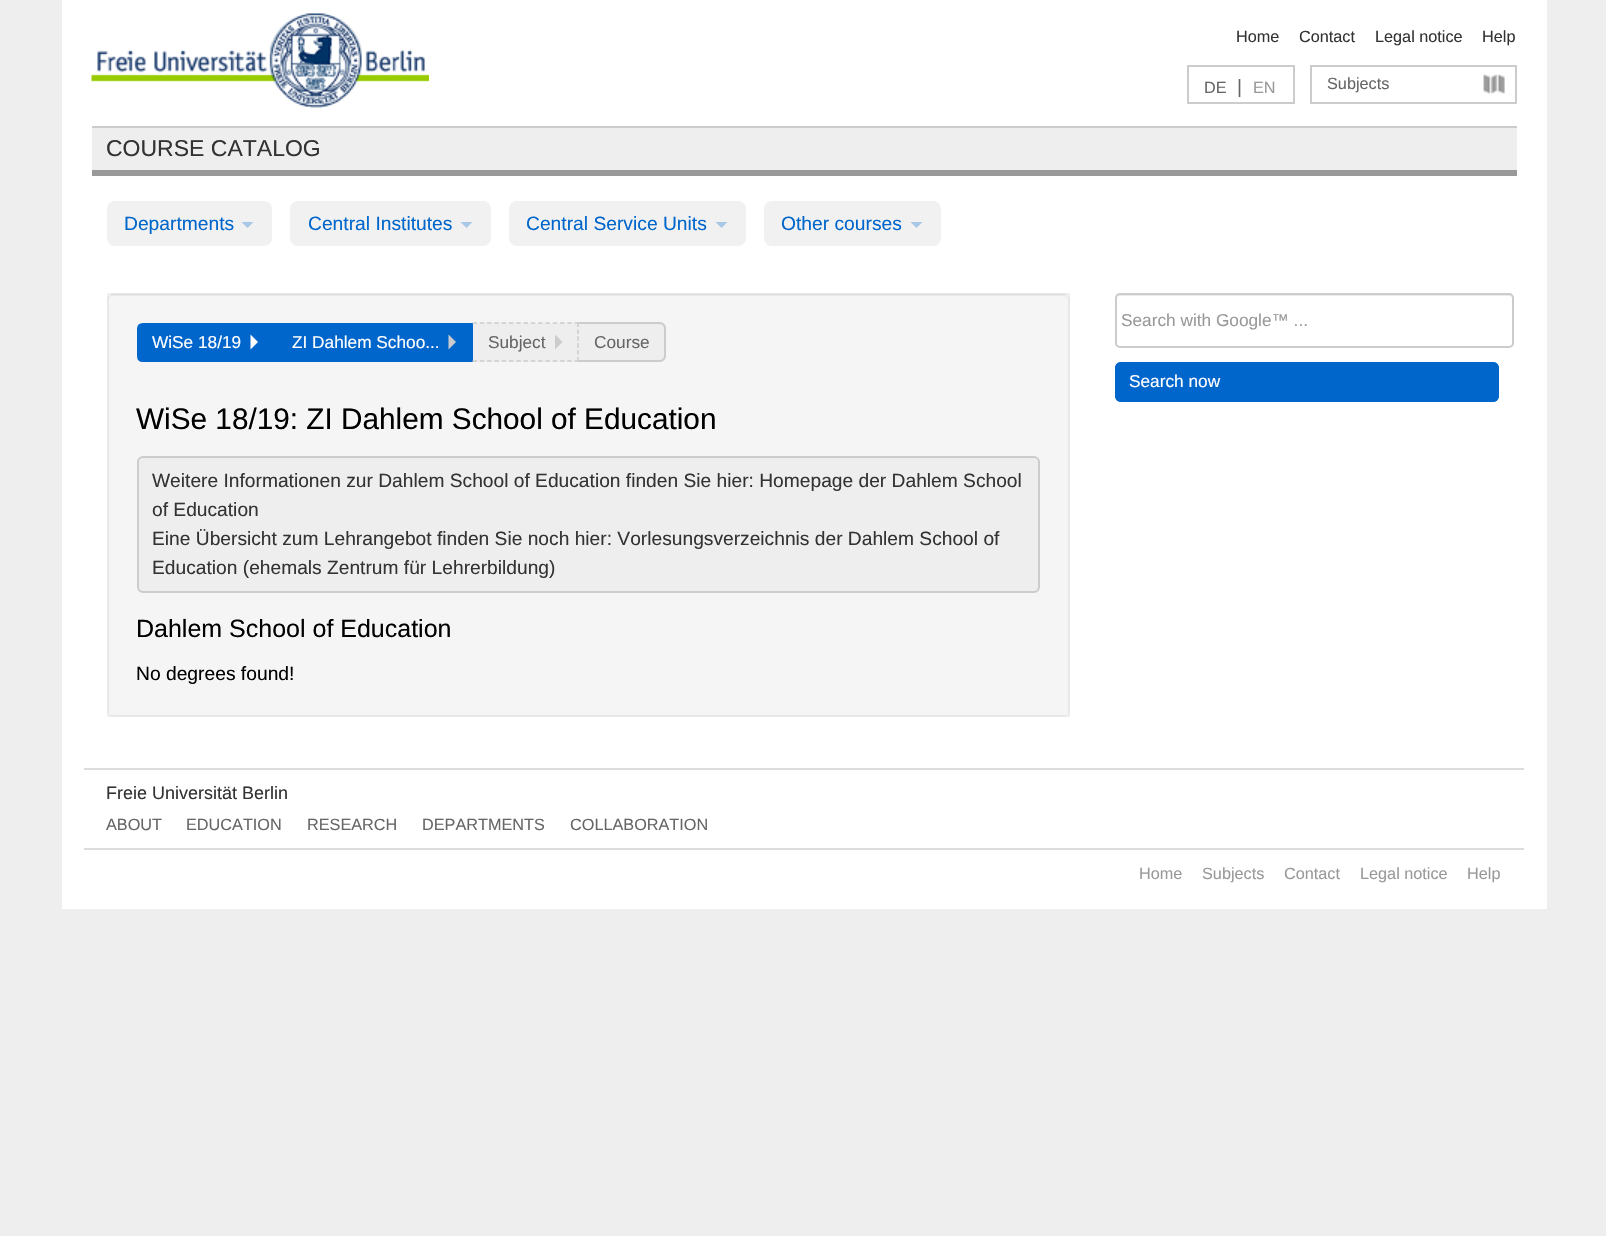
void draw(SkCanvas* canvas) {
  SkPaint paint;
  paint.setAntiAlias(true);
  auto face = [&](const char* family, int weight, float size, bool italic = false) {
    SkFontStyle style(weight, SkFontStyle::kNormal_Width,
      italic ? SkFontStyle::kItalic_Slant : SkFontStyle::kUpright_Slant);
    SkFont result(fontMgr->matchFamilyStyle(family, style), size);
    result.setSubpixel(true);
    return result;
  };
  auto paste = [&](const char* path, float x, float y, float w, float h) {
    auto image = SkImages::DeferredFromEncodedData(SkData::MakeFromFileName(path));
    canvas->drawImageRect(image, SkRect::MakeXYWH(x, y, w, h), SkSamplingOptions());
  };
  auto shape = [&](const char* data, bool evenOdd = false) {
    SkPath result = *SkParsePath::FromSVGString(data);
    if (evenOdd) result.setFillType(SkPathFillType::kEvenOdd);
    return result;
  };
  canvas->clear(0xffeeeeee);
  paint.setColor(0xffffffff);
  canvas->drawRect(SkRect::MakeXYWH(62, 0, 1485, 909), paint);
  paste("img/1.png", 91, 13, 338, 95);
  paint.setStroke(true);
  paint.setStrokeWidth(2);
  paint.setColor(0xffcccccc);
  canvas->drawRect(SkRect::MakeXYWH(1188, 66, 106, 37), paint);
  canvas->drawRect(SkRect::MakeXYWH(1311, 66, 205, 37), paint);
  paste("img/2.png", 1483, 74, 22, 20);
  paint.setStroke(false);
  {
    const struct { float x, y, w, h; SkColor color; } items[] = {
      {92, 128, 1425, 42, 0xffeeeeee},
      {92, 126, 1425, 2, 0xffcccccc},
      {92, 170, 1425, 6, 0xff999999},
    };
    for (auto [x, y, w, h, color] : items) {
      paint.setColor(color);
      canvas->drawRect(SkRect::MakeXYWH(x, y, w, h), paint);
    }
  }
  paint.setColor(0xfff1f1f1);
  canvas->drawRoundRect(SkRect::MakeXYWH(107, 201, 165, 45), 8, 8, paint);
  paint.setColor(0xffa9c7e6);
  canvas->drawPath(shape("M241.5 222H253.5L247.5 228Z"), paint);
  paint.setColor(0xfff1f1f1);
  canvas->drawRoundRect(SkRect::MakeXYWH(290, 201, 201, 45), 8, 8, paint);
  paint.setColor(0xffa9c7e6);
  canvas->drawPath(shape("M460.5 222H472.5L466.5 228Z"), paint);
  paint.setColor(0xfff1f1f1);
  canvas->drawRoundRect(SkRect::MakeXYWH(509, 201, 237, 45), 8, 8, paint);
  paint.setColor(0xffa9c7e6);
  canvas->drawPath(shape("M715.5 222H727.5L721.5 228Z"), paint);
  paint.setColor(0xfff1f1f1);
  canvas->drawRoundRect(SkRect::MakeXYWH(764, 201, 177, 45), 8, 8, paint);
  paint.setColor(0xffa9c7e6);
  canvas->drawPath(shape("M910.5 222H922.5L916.5 228Z"), paint);
  paint.setColor(0xfff5f5f5);
  canvas->drawRoundRect(SkRect::MakeXYWH(107, 293, 963, 424), 6, 6, paint);
  paint.setColor(0xffe9e9e9);
  canvas->drawPath(shape("M112 296H1064C1066 296 1068 298 1068 300C1068 297 1066 294 1063 294H113C110 294 108 297 108 300C108 298 110 296 112 296Z"), paint);
  paint.setStroke(true);
  paint.setColor(0x0d000000);
  canvas->drawRect(SkRect::MakeXYWH(108, 294, 961, 422), paint);
  paint.setStroke(false);
  paint.setColor(0xff0066cc);
  canvas->drawPath(shape("M143 324H274V361H143C140 361 138 359 138 356V329C138 326 140 324 143 324Z"), paint);
  paint.setStroke(true);
  canvas->drawPath(shape("M143 324H274V361H143C140 361 138 359 138 356V329C138 326 140 324 143 324Z"), paint);
  paint.setStroke(false);
  paint.setColor(0xffffffff);
  canvas->drawPath(shape("M250.5 349.5V334.5L258 342Z"), paint);
  paint.setColor(0xff0066cc);
  canvas->drawRect(SkRect::MakeXYWH(275, 323, 198, 39), paint);
  paint.setColor(0xffcccccc);
  canvas->drawPath(shape("M448.5 349.5V334.5L456 342Z"), paint);
  paint.setColor(0xffeeeeee);
  canvas->drawRect(SkRect::MakeXYWH(473, 323, 106, 39), paint);
  paint.setStroke(true);
  paint.setStrokeWidth(1.5f);
  paint.setColor(0xffcccccc);
  paint.setPathEffect(SkDashPathEffect::Make({{4.5f, 2.79f}}, 0));
  canvas->drawPath(shape("M472.5 323H579"), paint);
  paint.setPathEffect(nullptr);
  paint.setPathEffect(SkDashPathEffect::Make({{4.5f, 2.4f}}, 0));
  canvas->drawPath(shape("M578 322.5V361.5"), paint);
  paint.setPathEffect(nullptr);
  paint.setPathEffect(SkDashPathEffect::Make({{4.5f, 2.79f}}, 0));
  canvas->drawPath(shape("M472.5 361H579"), paint);
  paint.setPathEffect(nullptr);
  paint.setStroke(false);
  canvas->drawPath(shape("M555 349.5V334.5L562.5 342Z"), paint);
  paint.setColor(0xffeeeeee);
  canvas->drawPath(shape("M579 323H660C663.5 323 666 325.5 666 329V356C666 359.5 663.5 362 660 362H579Z"), paint);
  paint.setColor(0xffcccccc);
  canvas->drawPath(shape("M579 322H660C663 322 666 325 666 328V356C666 359 663 362 660 362H579ZM579 324H660C662 324 664 326 664 328V356C664 358 662 360 660 360H579Z", true), paint);
  paint.setColor(0xffeeeeee);
  canvas->drawRoundRect(SkRect::MakeXYWH(138, 457, 901, 135), 5, 5, paint);
  paint.setStroke(true);
  paint.setStrokeWidth(2);
  paint.setColor(0xffcccccc);
  canvas->drawRoundRect(SkRect::MakeXYWH(138, 457, 901, 135), 5, 5, paint);
  paint.setStroke(false);
  paint.setColor(0xffececec);
  canvas->drawPath(shape("M1119 296H1509C1511 296 1512 297 1512 298C1512 296 1511 294 1509 294H1119L1117 295L1116 298C1116 297 1117 296 1119 296Z"), paint);
  paint.setStroke(true);
  paint.setColor(0xffcccccc);
  canvas->drawRoundRect(SkRect::MakeXYWH(1116, 294, 397, 53), 4, 4, paint);
  paint.setStroke(false);
  paint.setColor(0xff0066cc);
  canvas->drawRoundRect(SkRect::MakeXYWH(1115, 362, 384, 40), 6, 6, paint);
  paint.setColor(0xff005ebd);
  canvas->drawPath(shape("M1120 364H1492C1495 364 1497 367 1497 369V368C1497 365 1495 363 1492 363H1121C1118 363 1116 365 1116 368V369C1116 367 1118 364 1120 364Z"), paint);
  paint.setStroke(true);
  paint.setColor(0xff0066cc);
  canvas->drawRoundRect(SkRect::MakeXYWH(1116, 363, 382, 38), 5, 5, paint);
  paint.setStroke(false);
  paint.setColor(0xffdddddd);
  canvas->drawRect(SkRect::MakeXYWH(84, 768, 1440, 2), paint);
  canvas->drawRect(SkRect::MakeXYWH(84, 848, 1440, 2), paint);
  auto f0 = face("Liberation Sans", 400, 16.25f);
  paint.setColor(0xff333333);
  {
    const struct { const char* s; float x, y; } items[] = {
      {"Home", 1236, 42},
      {"Contact", 1299, 42},
      {"Legal notice", 1375, 42},
      {"Help", 1482, 42},
    };
    for (auto [s, x, y] : items) {
      canvas->drawString(s, x, y, f0, paint);
    }
  }
  paint.setColor(0xff666666);
  canvas->drawString("DE", 1204, 93, f0, paint);
  auto f1 = face("Liberation Sans", 400, 19.25f);
  canvas->drawString("|", 1237, 93, f1, paint);
  paint.setColor(0xff999999);
  canvas->drawString("EN", 1253, 93, f0, paint);
  paint.setColor(0xff666666);
  canvas->drawString("Subjects", 1327, 89, f0, paint);
  auto f2 = face("Liberation Sans", 400, 23);
  paint.setColor(0xff333333);
  canvas->drawString("COURSE CATALOG", 106, 156, f2, paint);
  paint.setColor(0xff0066cc);
  {
    const struct { const char* s; float x, y; } items[] = {
      {"Departments", 124, 230},
      {"Central Institutes", 308, 230},
      {"Central Service Units", 526, 230},
      {"Other courses", 781, 230},
    };
    for (auto [s, x, y] : items) {
      canvas->drawString(s, x, y, f1, paint);
    }
  }
  auto f3 = face("Liberation Sans", 400, 17.25f);
  paint.setColor(0xffffffff);
  canvas->drawString("WiSe 18/19", 152, 348, f3, paint);
  canvas->drawString("ZI Dahlem Schoo...", 292, 348, f3, paint);
  paint.setColor(0xff666666);
  canvas->drawString("Subject", 488, 348, f3, paint);
  canvas->drawString("Course", 594, 348, f3, paint);
  auto f4 = face("Liberation Sans", 400, 29.75f);
  paint.setColor(0xff000000);
  canvas->drawString("WiSe 18/19: ZI Dahlem School of Education", 136, 429, f4, paint);
  auto f5 = face("Liberation Sans", 400, 19.2f);
  paint.setColor(0xff333333);
  {
    const struct { const char* s; float x, y; } items[] = {
      {"Weitere Informationen zur Dahlem School of Education finden Sie hier: Homepage der Dahlem School", 152, 487},
      {"of Education", 152, 516},
      {"Eine Übersicht zum Lehrangebot finden Sie noch hier: Vorlesungsverzeichnis der Dahlem School of", 152, 545},
      {"Education (ehemals Zentrum für Lehrerbildung)", 152, 574},
    };
    for (auto [s, x, y] : items) {
      canvas->drawString(s, x, y, f5, paint);
    }
  }
  auto f6 = face("Liberation Sans", 400, 25);
  paint.setColor(0xff000000);
  canvas->drawString("Dahlem School of Education", 136, 637, f6, paint);
  canvas->drawString("No degrees found!", 136, 680, f1, paint);
  paint.setColor(0xff999999);
  canvas->drawString("Search with Google™ ...", 1121, 326, f3, paint);
  paint.setColor(0xffffffff);
  canvas->drawString("Search now", 1129, 387, f3, paint);
  auto f7 = face("Liberation Sans", 400, 18);
  paint.setColor(0xff333333);
  canvas->drawString("Freie Universität Berlin", 106, 799, f7, paint);
  paint.setColor(0xff666666);
  {
    const struct { const char* s; float x, y; } items[] = {
      {"ABOUT", 106, 830},
      {"EDUCATION", 186, 830},
      {"RESEARCH", 307, 830},
      {"DEPARTMENTS", 422, 830},
      {"COLLABORATION", 570, 830},
    };
    for (auto [s, x, y] : items) {
      canvas->drawString(s, x, y, f0, paint);
    }
  }
  paint.setColor(0xff999999);
  {
    const struct { const char* s; float x, y; } items[] = {
      {"Home", 1139, 879},
      {"Subjects", 1202, 879},
      {"Contact", 1284, 879},
      {"Legal notice", 1360, 879},
      {"Help", 1467, 879},
    };
    for (auto [s, x, y] : items) {
      canvas->drawString(s, x, y, f0, paint);
    }
  }
}
